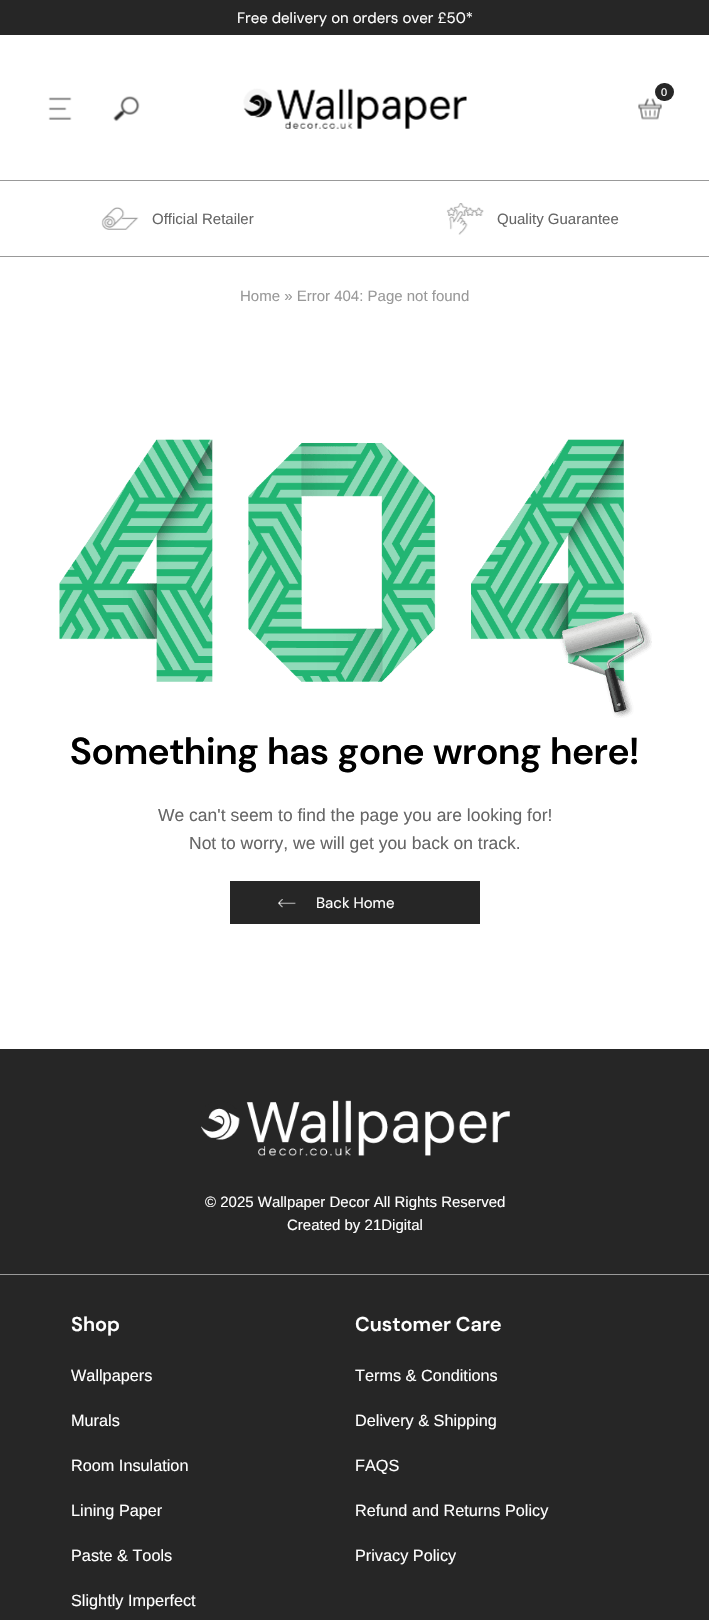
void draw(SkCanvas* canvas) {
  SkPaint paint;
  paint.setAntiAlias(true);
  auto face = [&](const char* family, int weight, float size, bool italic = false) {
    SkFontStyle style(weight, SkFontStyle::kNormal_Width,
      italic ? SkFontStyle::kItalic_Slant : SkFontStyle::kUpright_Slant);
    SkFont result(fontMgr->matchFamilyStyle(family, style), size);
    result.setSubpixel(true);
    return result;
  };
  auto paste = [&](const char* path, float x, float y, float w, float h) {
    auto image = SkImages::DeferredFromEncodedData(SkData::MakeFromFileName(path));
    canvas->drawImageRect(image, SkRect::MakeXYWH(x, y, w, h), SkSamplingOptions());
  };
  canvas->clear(0xffffffff);
  paint.setColor(0xff262626);
  canvas->drawRect(SkRect::MakeXYWH(0, 0, 709, 35), paint);
  paint.setColor(0xff999999);
  canvas->drawRect(SkRect::MakeXYWH(0, 180, 709, 1), paint);
  paste("img/1.png", 243, 88, 224, 41);
  paste("img/2.png", 638, 98, 24, 22);
  paint.setColor(0xff262626);
  canvas->drawRoundRect(SkRect::MakeXYWH(655, 83, 19, 18), 9, 9, paint);
  paste("img/3.png", 48, 97, 24, 23);
  paste("img/4.png", 113, 96, 27, 26);
  paint.setColor(0xff999999);
  canvas->drawRect(SkRect::MakeXYWH(0, 256, 709, 1), paint);
  paste("img/5.png", 101, 207, 38, 23);
  paste("img/6.png", 446, 203, 38, 32);
  paste("img/7.png", 59, 439, 593, 279);
  paint.setColor(0xff262626);
  canvas->drawRect(SkRect::MakeXYWH(230, 881, 250, 43), paint);
  paste("img/8.png", 278, 899, 18, 9);
  canvas->drawRect(SkRect::MakeXYWH(0, 1049, 709, 571), paint);
  paste("img/9.png", 201, 1100, 309, 56);
  paint.setColor(0xff999999);
  canvas->drawRect(SkRect::MakeXYWH(0, 1274, 709, 1), paint);
  auto f0 = face("DM Sans", 400, 15);
  paint.setColor(0xffffffff);
  canvas->drawString("Free delivery on orders over £50*", 237, 23, f0, paint);
  auto f1 = face("Liberation Sans", 400, 11);
  canvas->drawString("0", 661, 96, f1, paint);
  auto f2 = face("Liberation Sans", 400, 15);
  paint.setColor(0xff666666);
  canvas->drawString("Official Retailer", 152, 224, f2, paint);
  canvas->drawString("Quality Guarantee", 497, 224, f2, paint);
  paint.setColor(0xff999999);
  canvas->drawString("Home » Error 404: Page not found", 240, 301, f2, paint);
  auto f3 = face("DM Sans", 600, 37.5f);
  paint.setColor(0xff000000);
  canvas->drawString("Something has gone wrong here!", 70, 764, f3, paint);
  auto f4 = face("Liberation Sans", 400, 17.5f);
  paint.setColor(0xff666666);
  canvas->drawString("We can't seem to find the page you are looking for!", 158, 821, f4, paint);
  canvas->drawString("Not to worry, we will get you back on track.", 189, 849, f4, paint);
  paint.setColor(0xffffffff);
  canvas->drawString("Back Home", 316, 908, f0, paint);
  canvas->drawString("© 2025 Wallpaper Decor All Rights Reserved", 205, 1207, f2, paint);
  canvas->drawString("Created by 21Digital", 287, 1230, f2, paint);
  auto f5 = face("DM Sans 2", 600, 20);
  canvas->drawString("Shop", 71, 1331, f5, paint);
  auto f6 = face("Liberation Sans", 400, 16.25f);
  {
    const struct { const char* s; float x, y; } items[] = {
      {"Wallpapers", 71, 1381},
      {"Murals", 71, 1426},
      {"Room Insulation", 71, 1471},
      {"Lining Paper", 71, 1516},
      {"Paste & Tools", 71, 1561},
      {"Slightly Imperfect", 71, 1606},
    };
    for (auto [s, x, y] : items) {
      canvas->drawString(s, x, y, f6, paint);
    }
  }
  canvas->drawString("Customer Care", 355, 1331, f5, paint);
  {
    const struct { const char* s; float x, y; } items[] = {
      {"Terms & Conditions", 355, 1381},
      {"Delivery & Shipping", 355, 1426},
      {"FAQS", 355, 1471},
      {"Refund and Returns Policy", 355, 1516},
      {"Privacy Policy", 355, 1561},
    };
    for (auto [s, x, y] : items) {
      canvas->drawString(s, x, y, f6, paint);
    }
  }
}
